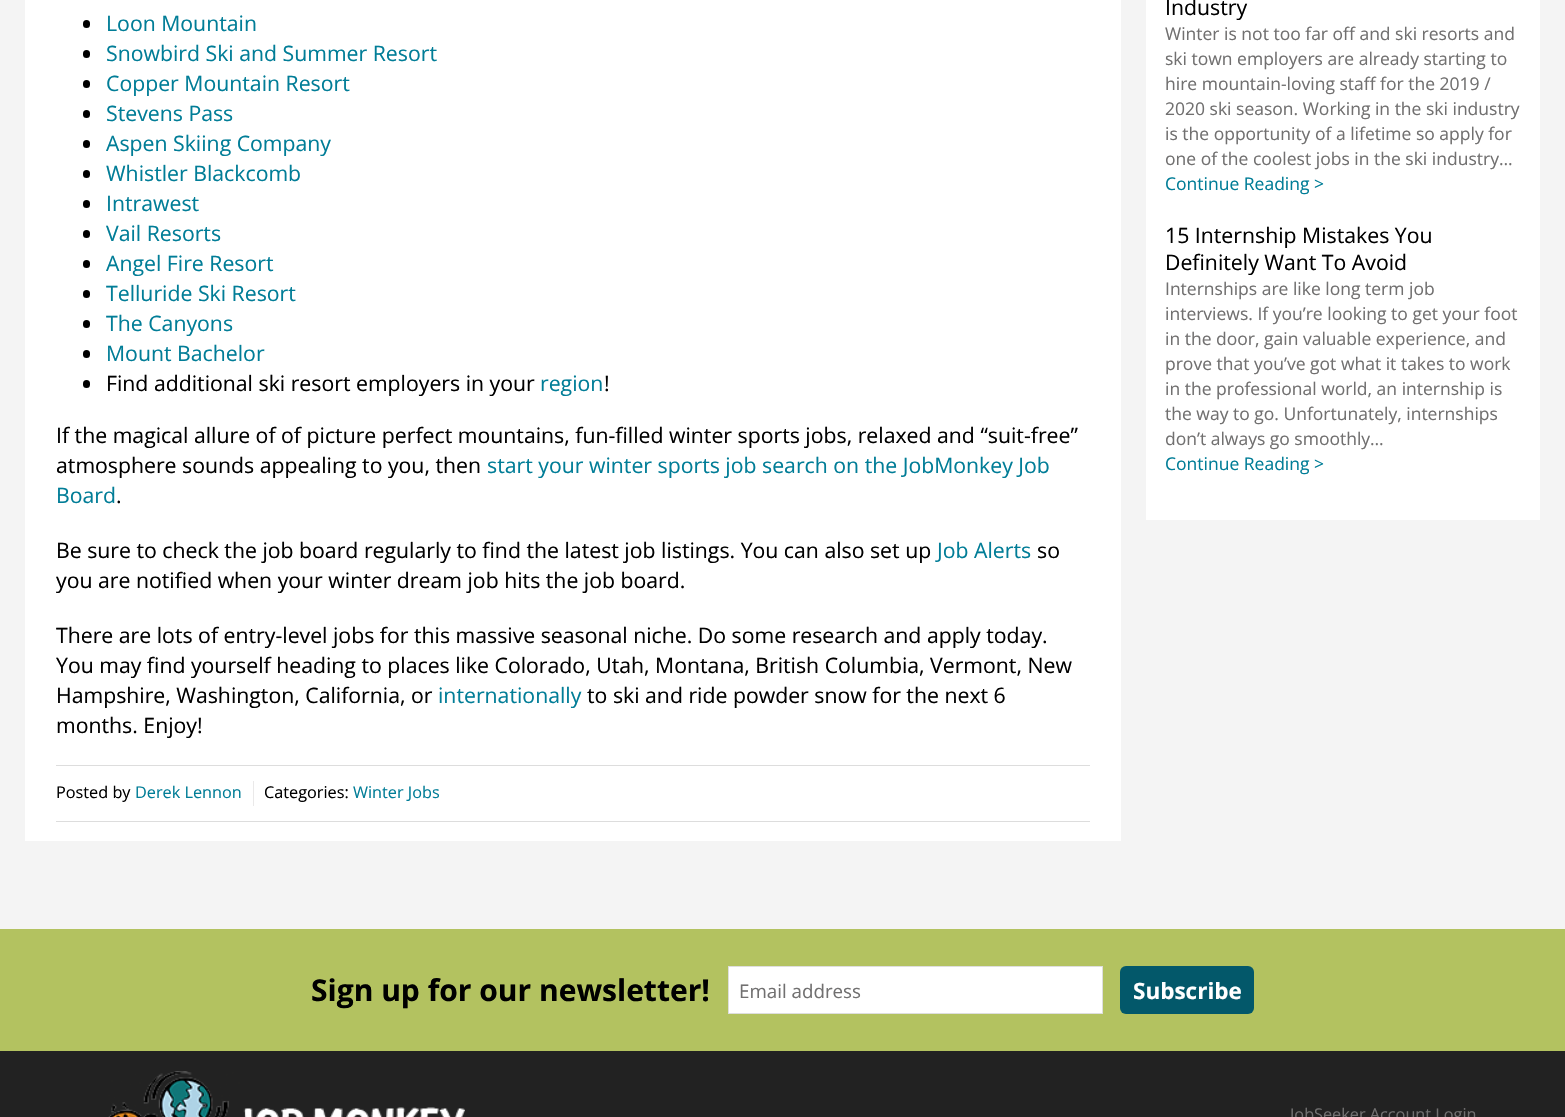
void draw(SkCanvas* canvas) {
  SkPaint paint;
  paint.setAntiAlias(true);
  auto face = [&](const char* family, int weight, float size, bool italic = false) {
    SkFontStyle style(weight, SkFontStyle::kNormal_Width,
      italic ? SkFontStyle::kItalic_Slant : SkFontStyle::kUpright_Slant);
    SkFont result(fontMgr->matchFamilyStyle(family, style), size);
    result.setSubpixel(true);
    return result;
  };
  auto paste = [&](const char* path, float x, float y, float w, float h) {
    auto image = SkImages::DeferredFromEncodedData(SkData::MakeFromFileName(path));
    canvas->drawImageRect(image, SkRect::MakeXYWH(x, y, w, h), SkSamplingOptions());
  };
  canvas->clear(0xff222222);
  paint.setColor(0xfff4f4f4);
  canvas->drawRect(SkRect::MakeXYWH(0, 0, 1565, 929), paint);
  paint.setColor(0xffffffff);
  canvas->drawRect(SkRect::MakeXYWH(25, 0, 1096, 841), paint);
  paint.setColor(0xff000000);
  canvas->drawRoundRect(SkRect::MakeXYWH(83, 20, 7, 8), 3.5f, 3.5f, paint);
  canvas->drawRoundRect(SkRect::MakeXYWH(83, 50, 7, 8), 3.5f, 3.5f, paint);
  canvas->drawRoundRect(SkRect::MakeXYWH(83, 80, 7, 8), 3.5f, 3.5f, paint);
  canvas->drawRoundRect(SkRect::MakeXYWH(83, 110, 7, 8), 3.5f, 3.5f, paint);
  canvas->drawRoundRect(SkRect::MakeXYWH(83, 140, 7, 8), 3.5f, 3.5f, paint);
  canvas->drawRoundRect(SkRect::MakeXYWH(83, 170, 7, 8), 3.5f, 3.5f, paint);
  canvas->drawRoundRect(SkRect::MakeXYWH(83, 200, 7, 8), 3.5f, 3.5f, paint);
  canvas->drawRoundRect(SkRect::MakeXYWH(83, 230, 7, 8), 3.5f, 3.5f, paint);
  canvas->drawRoundRect(SkRect::MakeXYWH(83, 260, 7, 8), 3.5f, 3.5f, paint);
  canvas->drawRoundRect(SkRect::MakeXYWH(83, 290, 7, 8), 3.5f, 3.5f, paint);
  canvas->drawRoundRect(SkRect::MakeXYWH(83, 320, 7, 8), 3.5f, 3.5f, paint);
  canvas->drawRoundRect(SkRect::MakeXYWH(83, 350, 7, 8), 3.5f, 3.5f, paint);
  canvas->drawRoundRect(SkRect::MakeXYWH(83, 380, 7, 8), 3.5f, 3.5f, paint);
  {
    const struct { float x, y, w, h; SkColor color; } items[] = {
      {56, 765, 1034, 1, 0xffdddddd},
      {56, 821, 1034, 1, 0xffdddddd},
      {253, 781, 1, 25, 0xffeae9e9},
      {1146, 0, 394, 520, 0xffffffff},
      {0, 929, 1565, 122, 0xffb3c260},
    };
    for (auto [x, y, w, h, color] : items) {
      paint.setColor(color);
      canvas->drawRect(SkRect::MakeXYWH(x, y, w, h), paint);
    }
  }
  paint.setColor(0xffffffff);
  canvas->drawRect(SkRect::MakeXYWH(728.5f, 966.5f, 374, 47), paint);
  paint.setStroke(true);
  paint.setStrokeWidth(1);
  paint.setColor(0xffdedede);
  canvas->drawRect(SkRect::MakeXYWH(728.5f, 966.5f, 374, 47), paint);
  paint.setStroke(false);
  paint.setColor(0xff03586a);
  canvas->drawRoundRect(SkRect::MakeXYWH(1120, 966, 134, 48), 6, 6, paint);
  paste("img/1.png", 108, 1071, 357, 46);
  auto f0 = face("Open Sans", 400, 21.25f);
  paint.setColor(0xff017d97);
  {
    const struct { const char* s; float x, y; } items[] = {
      {"Loon Mountain", 106, 31},
      {"Snowbird Ski and Summer Resort", 106, 61},
      {"Copper Mountain Resort", 106, 91},
      {"Stevens Pass", 106, 121},
      {"Aspen Skiing Company", 106, 151},
      {"Whistler Blackcomb", 106, 181},
      {"Intrawest", 106, 211},
      {"Vail Resorts", 106, 241},
      {"Angel Fire Resort", 106, 271},
      {"Telluride Ski Resort", 106, 301},
      {"The Canyons", 106, 331},
      {"Mount Bachelor", 106, 361},
    };
    for (auto [s, x, y] : items) {
      canvas->drawString(s, x, y, f0, paint);
    }
  }
  paint.setColor(0xff000000);
  canvas->drawString("Find additional ski resort employers in your", 106, 391, f0, paint);
  paint.setColor(0xff017d97);
  canvas->drawString("region", 540, 391, f0, paint);
  paint.setColor(0xff000000);
  {
    const struct { const char* s; float x, y; } items[] = {
      {"!", 604, 391},
      {"If the magical allure of of picture perfect mountains, fun-filled winter sports jobs, relaxed and “suit-free”", 56, 443},
      {"atmosphere sounds appealing to you, then", 56, 473},
    };
    for (auto [s, x, y] : items) {
      canvas->drawString(s, x, y, f0, paint);
    }
  }
  paint.setColor(0xff017d97);
  canvas->drawString("start your winter sports job search on the JobMonkey Job", 487, 473, f0, paint);
  canvas->drawString("Board", 56, 503, f0, paint);
  paint.setColor(0xff000000);
  canvas->drawString(".", 116, 503, f0, paint);
  canvas->drawString("Be sure to check the job board regularly to find the latest job listings. You can also set up", 56, 558, f0, paint);
  paint.setColor(0xff017d97);
  canvas->drawString("Job Alerts", 937, 558, f0, paint);
  paint.setColor(0xff000000);
  {
    const struct { const char* s; float x, y; } items[] = {
      {"so", 1037, 558},
      {"you are notified when your winter dream job hits the job board.", 56, 588},
      {"There are lots of entry-level jobs for this massive seasonal niche. Do some research and apply today.", 56, 643},
      {"You may find yourself heading to places like Colorado, Utah, Montana, British Columbia, Vermont, New", 56, 673},
      {"Hampshire, Washington, California, or", 56, 703},
    };
    for (auto [s, x, y] : items) {
      canvas->drawString(s, x, y, f0, paint);
    }
  }
  paint.setColor(0xff017d97);
  canvas->drawString("internationally", 438, 703, f0, paint);
  paint.setColor(0xff000000);
  canvas->drawString("to ski and ride powder snow for the next 6", 587, 703, f0, paint);
  canvas->drawString("months. Enjoy!", 56, 733, f0, paint);
  auto f1 = face("Open Sans", 400, 16.25f);
  canvas->drawString("Posted by", 56, 798, f1, paint);
  paint.setColor(0xff017d97);
  canvas->drawString("Derek Lennon", 135, 798, f1, paint);
  paint.setColor(0xff000000);
  canvas->drawString("Categories:", 264, 798, f1, paint);
  paint.setColor(0xff017d97);
  canvas->drawString("Winter Jobs", 353, 798, f1, paint);
  paint.setColor(0xff000000);
  canvas->drawString("Industry", 1165, 15, f0, paint);
  auto f2 = face("Open Sans", 400, 17.5f);
  paint.setColor(0xff717070);
  {
    const struct { const char* s; float x, y; } items[] = {
      {"Winter is not too far off and ski resorts and", 1165, 40},
      {"ski town employers are already starting to", 1165, 65},
      {"hire mountain-loving staff for the 2019 /", 1165, 90},
      {"2020 ski season. Working in the ski industry", 1165, 115},
      {"is the opportunity of a lifetime so apply for", 1165, 140},
      {"one of the coolest jobs in the ski industry…", 1165, 165},
    };
    for (auto [s, x, y] : items) {
      canvas->drawString(s, x, y, f2, paint);
    }
  }
  paint.setColor(0xff017d97);
  canvas->drawString("Continue Reading >", 1165, 190, f2, paint);
  paint.setColor(0xff000000);
  canvas->drawString("15 Internship Mistakes You", 1165, 243, f0, paint);
  canvas->drawString("Definitely Want To Avoid", 1165, 270, f0, paint);
  paint.setColor(0xff717070);
  {
    const struct { const char* s; float x, y; } items[] = {
      {"Internships are like long term job", 1165, 295},
      {"interviews. If you’re looking to get your foot", 1165, 320},
      {"in the door, gain valuable experience, and", 1165, 345},
      {"prove that you’ve got what it takes to work", 1165, 370},
      {"in the professional world, an internship is", 1165, 395},
      {"the way to go. Unfortunately, internships", 1165, 420},
      {"don’t always go smoothly…", 1165, 445},
    };
    for (auto [s, x, y] : items) {
      canvas->drawString(s, x, y, f2, paint);
    }
  }
  paint.setColor(0xff017d97);
  canvas->drawString("Continue Reading >", 1165, 470, f2, paint);
  auto f3 = face("Open Sans", 700, 30);
  paint.setColor(0xff000000);
  canvas->drawString("Sign up for our newsletter!", 311, 1001, f3, paint);
  auto f4 = face("Open Sans", 400, 18.75f);
  paint.setColor(0xff717070);
  canvas->drawString("Email address", 739, 998, f4, paint);
  auto f5 = face("Open Sans", 700, 22.5f);
  paint.setColor(0xffffffff);
  canvas->drawString("Subscribe", 1133, 999, f5, paint);
  paint.setColor(0xff717070);
  canvas->drawString("JobSeeker Account Login", 1290, 1120, f1, paint);
}
